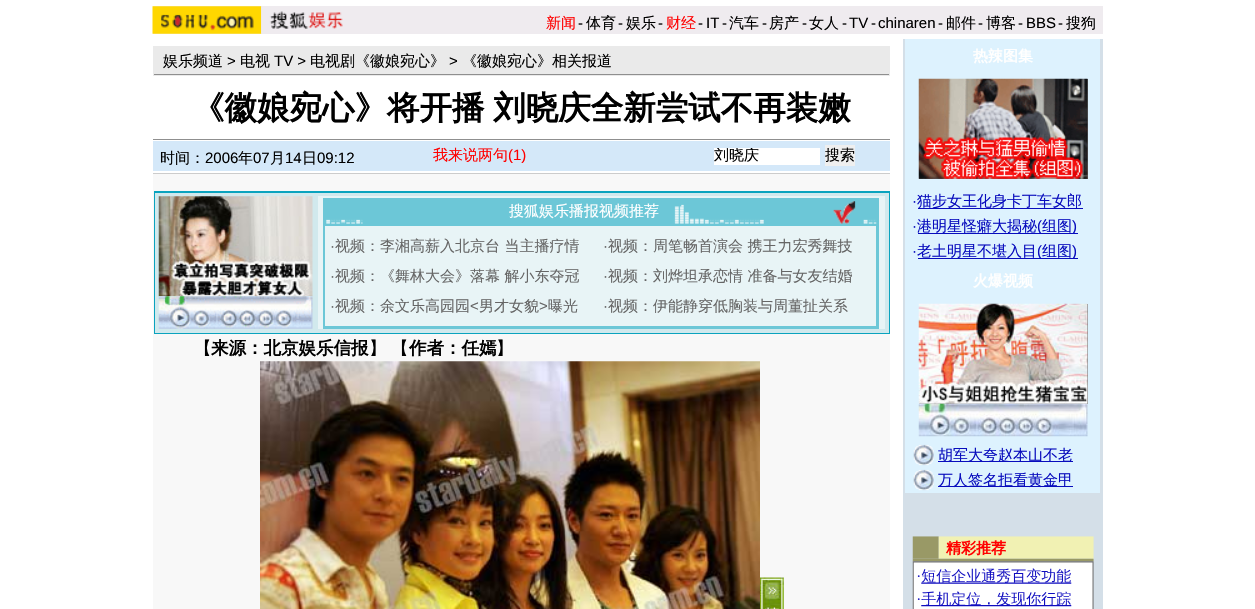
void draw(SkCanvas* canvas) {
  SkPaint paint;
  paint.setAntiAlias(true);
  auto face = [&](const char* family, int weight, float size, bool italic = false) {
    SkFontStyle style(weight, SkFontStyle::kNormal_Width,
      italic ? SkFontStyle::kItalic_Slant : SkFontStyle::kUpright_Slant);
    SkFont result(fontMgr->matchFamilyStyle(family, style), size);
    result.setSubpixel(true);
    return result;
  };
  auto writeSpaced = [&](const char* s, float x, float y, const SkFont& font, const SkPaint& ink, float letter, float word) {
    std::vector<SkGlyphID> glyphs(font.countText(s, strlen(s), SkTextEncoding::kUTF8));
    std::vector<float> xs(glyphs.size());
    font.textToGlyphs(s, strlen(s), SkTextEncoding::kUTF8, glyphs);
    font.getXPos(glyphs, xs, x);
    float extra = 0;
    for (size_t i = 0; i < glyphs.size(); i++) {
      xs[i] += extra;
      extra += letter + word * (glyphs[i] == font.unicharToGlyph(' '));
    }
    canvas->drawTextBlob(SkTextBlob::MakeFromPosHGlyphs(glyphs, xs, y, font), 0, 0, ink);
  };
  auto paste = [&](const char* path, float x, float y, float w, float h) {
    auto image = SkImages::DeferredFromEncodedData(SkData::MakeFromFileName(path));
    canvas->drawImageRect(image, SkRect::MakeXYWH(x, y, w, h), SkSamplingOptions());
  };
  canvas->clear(0xffffffff);
  paint.setColor(0xffefebef);
  canvas->drawRect(SkRect::MakeXYWH(153, 6, 950, 28), paint);
  paste("img/1.png", 152, 6, 110, 28);
  paste("img/2.png", 261, 6, 82, 28);
  {
    const struct { float x, y, w, h; SkColor color; } items[] = {
      {153, 46, 737, 30, 0xffeaeaea},
      {154, 74, 735, 1, 0xff8f8f8f},
      {153, 139, 737, 1, 0xff8f8f8f},
      {153, 141, 737, 30, 0xffd4e8f9},
      {714, 148, 106, 17, 0xffffffff},
      {825, 145, 30, 21, 0xffefefef},
      {153, 174, 737, 435, 0xfff8f8f8},
      {153, 173, 737, 1, 0xffcccccc},
      {154, 191, 736, 143, 0xff0aa3be},
      {155, 193, 734, 140, 0xffd1e9ed},
    };
    for (auto [x, y, w, h, color] : items) {
      paint.setColor(color);
      canvas->drawRect(SkRect::MakeXYWH(x, y, w, h), paint);
    }
  }
  paste("img/3.png", 158, 196, 155, 101);
  paste("img/4.png", 158, 296, 155, 33);
  paint.setColor(0xffe8f4f6);
  canvas->drawRect(SkRect::MakeXYWH(318, 196, 567, 133), paint);
  paint.setColor(0xff6cc7d7);
  canvas->drawRect(SkRect::MakeXYWH(323, 198, 556, 131), paint);
  paste("img/5.png", 326, 201, 551, 23);
  paint.setColor(0xffe8f4f6);
  canvas->drawRect(SkRect::MakeXYWH(325, 226, 551, 100), paint);
  paste("img/6.png", 260, 361, 500, 248);
  paste("img/7.png", 760, 577, 24, 32);
  {
    const struct { float x, y, w, h; SkColor color; } items[] = {
      {903, 39, 200, 570, 0xffd4dfe8},
      {905, 39, 195, 454, 0xffddf2fe},
      {919, 79, 169, 100, 0xff666666},
    };
    for (auto [x, y, w, h, color] : items) {
      paint.setColor(color);
      canvas->drawRect(SkRect::MakeXYWH(x, y, w, h), paint);
    }
  }
  paste("img/8.png", 918, 78, 170, 101);
  {
    const struct { float x, y, w, h; SkColor color; } items[] = {
      {918, 208, 165, 1, 0xff080cbd},
      {918, 233, 160, 1, 0xff080cbd},
      {918, 258, 160, 1, 0xff080cbd},
      {919, 304, 169, 100, 0xff666666},
    };
    for (auto [x, y, w, h, color] : items) {
      paint.setColor(color);
      canvas->drawRect(SkRect::MakeXYWH(x, y, w, h), paint);
    }
  }
  paste("img/9.png", 918, 303, 170, 101);
  paste("img/10.png", 918, 403, 170, 34);
  paste("img/11.png", 913, 444, 21, 22);
  paint.setColor(0xff080cbd);
  canvas->drawRect(SkRect::MakeXYWH(938, 461, 135, 1), paint);
  paste("img/11.png", 913, 469, 21, 22);
  canvas->drawRect(SkRect::MakeXYWH(938, 486, 135, 1), paint);
  paste("img/12.png", 912, 536, 182, 73);
  auto f0 = face("WenQuanYi Zen Hei", 500, 15);
  paint.setColor(0xffff0000);
  canvas->drawString("新闻", 546, 28, f0, paint);
  auto f1 = face("Liberation Sans", 400, 15);
  paint.setColor(0xff000000);
  canvas->drawString("-", 578, 28, f1, paint);
  canvas->drawString("体育", 586, 28, f0, paint);
  canvas->drawString("-", 618, 28, f1, paint);
  canvas->drawString("娱乐", 626, 28, f0, paint);
  canvas->drawString("-", 658, 28, f1, paint);
  paint.setColor(0xffff0000);
  canvas->drawString("财经", 666, 28, f0, paint);
  paint.setColor(0xff000000);
  {
    const struct { const char* s; float x, y; } items[] = {
      {"-", 698, 28},
      {"IT", 706, 28},
      {"-", 722, 28},
    };
    for (auto [s, x, y] : items) {
      canvas->drawString(s, x, y, f1, paint);
    }
  }
  canvas->drawString("汽车", 729, 28, f0, paint);
  canvas->drawString("-", 762, 28, f1, paint);
  canvas->drawString("房产", 769, 28, f0, paint);
  canvas->drawString("-", 802, 28, f1, paint);
  canvas->drawString("女人", 809, 28, f0, paint);
  {
    const struct { const char* s; float x, y; } items[] = {
      {"-", 842, 28},
      {"TV", 849, 28},
      {"-", 871, 28},
      {"chinaren", 878, 28},
      {"-", 938, 28},
    };
    for (auto [s, x, y] : items) {
      canvas->drawString(s, x, y, f1, paint);
    }
  }
  canvas->drawString("邮件", 946, 28, f0, paint);
  canvas->drawString("-", 978, 28, f1, paint);
  canvas->drawString("博客", 986, 28, f0, paint);
  {
    const struct { const char* s; float x, y; } items[] = {
      {"-", 1018, 28},
      {"BBS", 1026, 28},
      {"-", 1058, 28},
    };
    for (auto [s, x, y] : items) {
      canvas->drawString(s, x, y, f1, paint);
    }
  }
  canvas->drawString("搜狗", 1066, 28, f0, paint);
  canvas->drawString("娱乐频道", 163, 66, f0, paint);
  canvas->drawString(">", 227, 66, f1, paint);
  canvas->drawString("电视", 240, 66, f0, paint);
  canvas->drawString("TV >", 274, 66, f1, paint);
  canvas->drawString("电视剧《徽娘宛心》", 310, 66, f0, paint);
  canvas->drawString(">", 449, 66, f1, paint);
  canvas->drawString("《徽娘宛心》相关报道", 462, 66, f0, paint);
  auto f2 = face("WenQuanYi Zen Hei", 700, 32.5f);
  writeSpaced("《徽娘宛心》将开播 刘晓庆全新尝试不再装嫩", 192, 119, f2, paint, 0, -1);
  canvas->drawString("时间：", 160, 163, f0, paint);
  canvas->drawString("2006", 205, 163, f1, paint);
  canvas->drawString("年", 238, 163, f0, paint);
  canvas->drawString("07", 253, 163, f1, paint);
  canvas->drawString("月", 270, 163, f0, paint);
  canvas->drawString("14", 285, 163, f1, paint);
  canvas->drawString("日", 302, 163, f0, paint);
  canvas->drawString("09:12", 317, 163, f1, paint);
  paint.setColor(0xffff0000);
  canvas->drawString("我来说两句", 433, 160, f0, paint);
  canvas->drawString("(1)", 508, 160, f1, paint);
  canvas->save();
  canvas->clipRect(SkRect::MakeXYWH(714, 148, 106, 17));
  paint.setColor(0xff000000);
  canvas->drawString("刘晓庆", 714, 160, f0, paint);
  canvas->restore();
  canvas->drawString("搜索", 825, 160, f0, paint);
  paint.setColor(0xffffffff);
  canvas->drawString("搜狐娱乐播报视频推荐", 509, 216, f0, paint);
  paint.setColor(0xff666666);
  canvas->drawString("·", 330, 251, f1, paint);
  canvas->drawString("视频：李湘高薪入北京台 当主播疗情", 335, 251, f0, paint);
  canvas->drawString("·", 330, 281, f1, paint);
  canvas->drawString("视频：《舞林大会》落幕 解小东夺冠", 335, 281, f0, paint);
  canvas->drawString("·", 330, 311, f1, paint);
  canvas->drawString("视频：余文乐高园园", 335, 311, f0, paint);
  canvas->drawString("<", 470, 311, f1, paint);
  canvas->drawString("男才女貌", 479, 311, f0, paint);
  canvas->drawString(">", 539, 311, f1, paint);
  canvas->drawString("曝光", 548, 311, f0, paint);
  canvas->drawString("·", 603, 251, f1, paint);
  canvas->drawString("视频：周笔畅首演会 携王力宏秀舞技", 608, 251, f0, paint);
  canvas->drawString("·", 603, 281, f1, paint);
  canvas->drawString("视频：刘烨坦承恋情 准备与女友结婚", 608, 281, f0, paint);
  canvas->drawString("·", 603, 311, f1, paint);
  canvas->drawString("视频：伊能静穿低胸装与周董扯关系", 608, 311, f0, paint);
  auto f3 = face("WenQuanYi Zen Hei", 500, 17.5f);
  paint.setColor(0xff000000);
  canvas->drawString("【", 194, 354, f3, paint);
  auto f4 = face("WenQuanYi Zen Hei", 700, 17.5f);
  canvas->drawString("来源：北京娱乐信报", 211, 354, f4, paint);
  canvas->drawString("】", 369, 354, f3, paint);
  canvas->drawString("【", 391, 354, f3, paint);
  canvas->drawString("作者：任嫣", 409, 354, f4, paint);
  canvas->drawString("】", 496, 354, f3, paint);
  auto f5 = face("WenQuanYi Zen Hei", 700, 15);
  paint.setColor(0xffffffff);
  canvas->drawString("热辣图集", 973, 61, f5, paint);
  paint.setColor(0xff080cbd);
  canvas->drawString("·", 912, 206, f1, paint);
  canvas->drawString("猫步女王化身卡丁车女郎", 917, 206, f0, paint);
  canvas->drawString("·", 912, 231, f1, paint);
  canvas->drawString("港明星怪癖大揭秘", 917, 231, f0, paint);
  canvas->drawString("(", 1037, 231, f1, paint);
  canvas->drawString("组图", 1042, 231, f0, paint);
  canvas->drawString(")", 1072, 231, f1, paint);
  canvas->drawString("·", 912, 256, f1, paint);
  canvas->drawString("老土明星不堪入目", 917, 256, f0, paint);
  canvas->drawString("(", 1037, 256, f1, paint);
  canvas->drawString("组图", 1042, 256, f0, paint);
  canvas->drawString(")", 1072, 256, f1, paint);
  paint.setColor(0xffffffff);
  canvas->drawString("火爆视频", 973, 286, f5, paint);
  paint.setColor(0xff080cbd);
  canvas->drawString("胡军大夸赵本山不老", 938, 460, f0, paint);
  canvas->drawString("万人签名拒看黄金甲", 938, 485, f0, paint);
}
